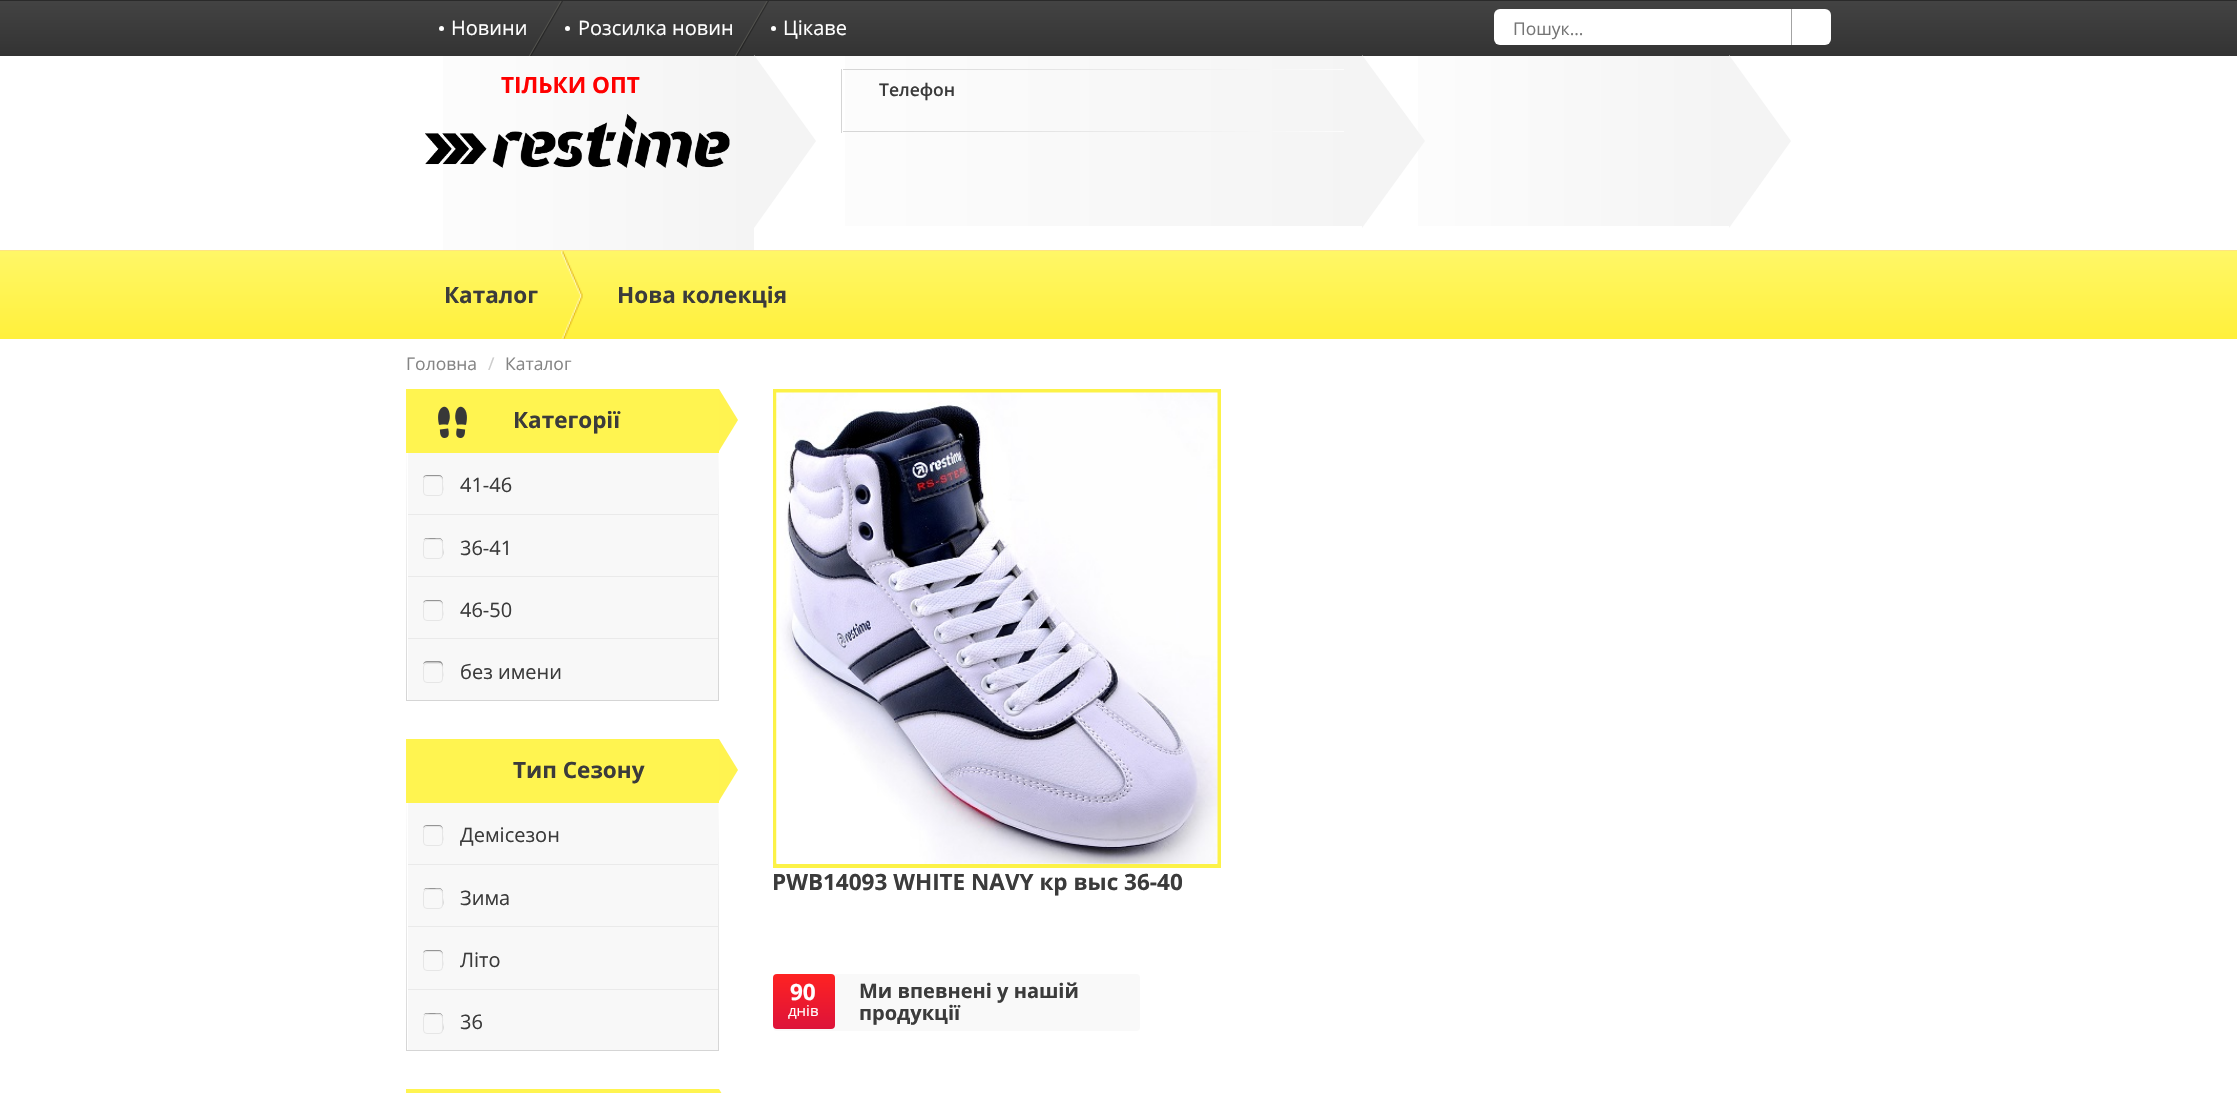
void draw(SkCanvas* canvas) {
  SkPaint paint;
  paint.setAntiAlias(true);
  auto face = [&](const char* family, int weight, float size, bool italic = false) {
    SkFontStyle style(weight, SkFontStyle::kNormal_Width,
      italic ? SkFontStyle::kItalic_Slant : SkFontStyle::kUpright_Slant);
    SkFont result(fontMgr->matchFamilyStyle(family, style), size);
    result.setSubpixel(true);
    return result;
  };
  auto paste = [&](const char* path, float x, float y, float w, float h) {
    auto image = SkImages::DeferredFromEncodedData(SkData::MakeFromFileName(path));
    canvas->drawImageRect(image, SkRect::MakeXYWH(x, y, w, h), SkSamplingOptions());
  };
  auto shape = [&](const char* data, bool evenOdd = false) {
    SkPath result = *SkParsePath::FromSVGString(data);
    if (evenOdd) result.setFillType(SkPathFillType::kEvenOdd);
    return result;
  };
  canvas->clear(0xffffffff);
  {
    const SkColor colors[] = {0xff434343, 0xff333333};
    const float stops[] = {0, 1};
    const SkPoint ends[] = {{1119, 1.2f}, {1119, 56}};
    paint.setShader(SkGradientShader::MakeLinear(ends, colors, stops, 2, SkTileMode::kClamp));
    paint.setAlpha(255);
  }
  canvas->drawRect(SkRect::MakeXYWH(0, 1, 2237, 55), paint);
  paint.setShader(nullptr);
  paint.setColor(0xff2a2a2a);
  canvas->drawRect(SkRect::MakeXYWH(0, 0, 2237, 1), paint);
  paint.setColor(0xffffffff);
  canvas->drawCircle(441.5f, 28.5f, 2.5f, paint);
  canvas->drawCircle(567.5f, 28.5f, 2.5f, paint);
  canvas->save();
  canvas->clipRect(SkRect::MakeXYWH(0, 1, 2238, 55));
  paint.setColor(0x4d000000);
  canvas->drawPath(shape("M591-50L516 80L517 81L592-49Z"), paint);
  paint.setColor(0xff54544f);
  canvas->drawPath(shape("M590-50H591L516 80H515Z"), paint);
  canvas->restore();
  paint.setColor(0xffffffff);
  canvas->drawCircle(773.5f, 28.5f, 2.5f, paint);
  canvas->save();
  canvas->clipRect(SkRect::MakeXYWH(0, 1, 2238, 55));
  paint.setColor(0x4d000000);
  canvas->drawPath(shape("M797-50L722 80L723 81L798-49Z"), paint);
  paint.setColor(0xff54544f);
  canvas->drawPath(shape("M796-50H797L722 80H721Z"), paint);
  canvas->restore();
  paint.setColor(0xffffffff);
  canvas->drawRoundRect(SkRect::MakeXYWH(1494, 9, 337, 36), 6, 6, paint);
  paint.setColor(0xffa3a3a3);
  canvas->drawRect(SkRect::MakeXYWH(1791, 9, 1, 36), paint);
  {
    const SkColor colors[] = {0xfffefefe, 0xfff4f4f4};
    const float stops[] = {0, 1};
    const SkPoint ends[] = {{388, 153}, {754, 153}};
    paint.setShader(SkGradientShader::MakeLinear(ends, colors, stops, 2, SkTileMode::kClamp));
    paint.setAlpha(255);
  }
  canvas->drawRect(SkRect::MakeXYWH(443, 56, 311, 194), paint);
  paint.setShader(nullptr);
  paint.setColor(0xfff4f4f4);
  canvas->drawPath(shape("M754 228V55L816 141Z"), paint);
  paste("img/1.png", 425, 114, 305, 54);
  {
    const SkColor colors[] = {0xfffefefe, 0xfff4f4f4};
    const float stops[] = {0, 1};
    const SkPoint ends[] = {{754, 141}, {1363, 141}};
    paint.setShader(SkGradientShader::MakeLinear(ends, colors, stops, 2, SkTileMode::kClamp));
    paint.setAlpha(255);
  }
  canvas->drawRect(SkRect::MakeXYWH(845, 56, 518, 170), paint);
  {
    const SkColor colors[] = {0xfffcfcfc, 0xffd5d5d5};
    const float stops[] = {0, 1};
    const SkPoint ends[] = {{1344, 132}, {843, 132}};
    paint.setShader(SkGradientShader::MakeLinear(ends, colors, stops, 2, SkTileMode::kClamp));
    paint.setAlpha(255);
  }
  canvas->drawRect(SkRect::MakeXYWH(843, 131, 501, 1), paint);
  {
    const SkColor colors[] = {0xfffcfcfc, 0xffd5d5d5};
    const float stops[] = {0, 1};
    const SkPoint ends[] = {{1344, 69}, {843, 69}};
    paint.setShader(SkGradientShader::MakeLinear(ends, colors, stops, 2, SkTileMode::kClamp));
    paint.setAlpha(255);
  }
  canvas->drawRect(SkRect::MakeXYWH(843, 69, 501, 1), paint);
  paint.setShader(nullptr);
  paint.setColor(0xffd5d5d5);
  canvas->drawRect(SkRect::MakeXYWH(841, 69, 1, 64), paint);
  {
    const SkColor colors[] = {0xfffefefe, 0xfff4f4f4};
    const float stops[] = {0, 1};
    const SkPoint ends[] = {{1363, 141}, {1729, 141}};
    paint.setShader(SkGradientShader::MakeLinear(ends, colors, stops, 2, SkTileMode::kClamp));
    paint.setAlpha(255);
  }
  canvas->drawRect(SkRect::MakeXYWH(1418, 56, 311, 170), paint);
  paint.setShader(nullptr);
  paint.setColor(0xfff4f4f4);
  canvas->drawPath(shape("M1362 228V55L1425 141Z"), paint);
  canvas->drawPath(shape("M1729 228V55L1791 141Z"), paint);
  {
    const SkColor colors[] = {0xfffff767, 0xfffff03b};
    const float stops[] = {0, 1};
    const SkPoint ends[] = {{1119, 251}, {1119, 339}};
    paint.setShader(SkGradientShader::MakeLinear(ends, colors, stops, 2, SkTileMode::kClamp));
    paint.setAlpha(255);
  }
  canvas->drawRect(SkRect::MakeXYWH(0, 251, 2237, 88), paint);
  paint.setShader(nullptr);
  paint.setColor(0xfffee581);
  canvas->drawRect(SkRect::MakeXYWH(0, 250, 2237, 1), paint);
  paste("img/2.png", 561, 251, 22, 88);
  paint.setColor(0xfffff450);
  canvas->drawRect(SkRect::MakeXYWH(406, 389, 313, 64), paint);
  paste("img/3.png", 438, 406, 29, 32);
  paint.setColor(0xfffff350);
  canvas->drawPath(shape("M719 451V389L738 420Z"), paint);
  {
    const SkColor colors[] = {0xfffcfcfc, 0xffd5d5d5};
    const float stops[] = {0, 1};
    const SkPoint ends[] = {{718, 453}, {718, 700}};
    paint.setShader(SkGradientShader::MakeLinear(ends, colors, stops, 2, SkTileMode::kClamp));
    paint.setAlpha(255);
  }
  canvas->drawRect(SkRect::MakeXYWH(718, 453, 1, 247), paint);
  {
    const SkColor colors[] = {0xfffcfcfc, 0xffd5d5d5};
    const float stops[] = {0, 1};
    const SkPoint ends[] = {{407, 453}, {407, 700}};
    paint.setShader(SkGradientShader::MakeLinear(ends, colors, stops, 2, SkTileMode::kClamp));
    paint.setAlpha(255);
  }
  canvas->drawRect(SkRect::MakeXYWH(406, 453, 1, 247), paint);
  paint.setShader(nullptr);
  paint.setColor(0xffd5d5d5);
  canvas->drawRect(SkRect::MakeXYWH(406, 700, 313, 1), paint);
  paint.setColor(0xfff8f8f8);
  canvas->drawRect(SkRect::MakeXYWH(408, 453, 310, 247), paint);
  paint.setColor(0xff959595);
  canvas->drawPath(shape("M427 475C425 475 423.5 476 423 478C425 475.5 428 476 430.5 476H436.5C439 476 442 476.5 442.5 479V493C443.5 491 443 487.5 443 485C443 482 444 475 439 475Z"), paint);
  paint.setStroke(true);
  paint.setStrokeWidth(1);
  paint.setColor(0xffe6e6e6);
  canvas->drawRoundRect(SkRect::MakeXYWH(423.5f, 476.5f, 19, 19), 3.5f, 3.5f, paint);
  paint.setStroke(false);
  paint.setColor(0xffeaeaea);
  canvas->drawRect(SkRect::MakeXYWH(408, 514, 310, 1), paint);
  paint.setColor(0xff959595);
  canvas->drawPath(shape("M427 538C425.5 538 424.5 538.5 423.5 540C425.5 538 430 539 432.5 539C435.5 539 441.5 537.5 442.5 541.5V556.5C444 554 443 550.5 443 548C443 545 444 538 439 538Z"), paint);
  paint.setStroke(true);
  paint.setColor(0xffe6e6e6);
  canvas->drawRoundRect(SkRect::MakeXYWH(423.5f, 539.5f, 19, 19), 3.5f, 3.5f, paint);
  paint.setStroke(false);
  paint.setColor(0xffeaeaea);
  canvas->drawRect(SkRect::MakeXYWH(408, 576, 310, 1), paint);
  paint.setColor(0xff959595);
  canvas->drawPath(shape("M427 600C425 600 423.5 601 423 603C425 600.5 428 601 430.5 601H436.5C439 601 442 601.5 442.5 604V618C443.5 616 443 612.5 443 610C443 607 444 600 439 600Z"), paint);
  paint.setStroke(true);
  paint.setColor(0xffe6e6e6);
  canvas->drawRoundRect(SkRect::MakeXYWH(423.5f, 601.5f, 19, 19), 3.5f, 3.5f, paint);
  paint.setStroke(false);
  paint.setColor(0xffeaeaea);
  canvas->drawRect(SkRect::MakeXYWH(408, 638, 310, 1), paint);
  paint.setColor(0xff959595);
  canvas->drawPath(shape("M427 661C425 661 423.5 662.5 423 664.5C424.5 662 428 662.5 430.5 662.5H436.5C441.5 662.5 442.5 663.5 442.5 668.5V679C443.5 677 443 673.5 443 671C443 668 444 661 439 661Z"), paint);
  paint.setStroke(true);
  paint.setColor(0xffe6e6e6);
  canvas->drawRoundRect(SkRect::MakeXYWH(423.5f, 663.5f, 19, 19), 3.5f, 3.5f, paint);
  paint.setStroke(false);
  paint.setColor(0xfffff450);
  canvas->drawRect(SkRect::MakeXYWH(406, 739, 313, 64), paint);
  paint.setColor(0xfffff350);
  canvas->drawPath(shape("M719 801V739L738 770Z"), paint);
  {
    const SkColor colors[] = {0xfffcfcfc, 0xffd5d5d5};
    const float stops[] = {0, 1};
    const SkPoint ends[] = {{718, 803}, {718, 1050}};
    paint.setShader(SkGradientShader::MakeLinear(ends, colors, stops, 2, SkTileMode::kClamp));
    paint.setAlpha(255);
  }
  canvas->drawRect(SkRect::MakeXYWH(718, 803, 1, 247), paint);
  {
    const SkColor colors[] = {0xfffcfcfc, 0xffd5d5d5};
    const float stops[] = {0, 1};
    const SkPoint ends[] = {{407, 803}, {407, 1050}};
    paint.setShader(SkGradientShader::MakeLinear(ends, colors, stops, 2, SkTileMode::kClamp));
    paint.setAlpha(255);
  }
  canvas->drawRect(SkRect::MakeXYWH(406, 803, 1, 247), paint);
  paint.setShader(nullptr);
  paint.setColor(0xffd5d5d5);
  canvas->drawRect(SkRect::MakeXYWH(406, 1050, 313, 1), paint);
  paint.setColor(0xfff8f8f8);
  canvas->drawRect(SkRect::MakeXYWH(408, 803, 310, 247), paint);
  paint.setColor(0xff959595);
  canvas->drawPath(shape("M427 825C425 825 423.5 826 423 828C425 825.5 428 826 430.5 826H436.5C439 826 442 826.5 442.5 829V843C443.5 841 443 837.5 443 835C443 832 444 825 439 825Z"), paint);
  paint.setStroke(true);
  paint.setColor(0xffe6e6e6);
  canvas->drawRoundRect(SkRect::MakeXYWH(423.5f, 826.5f, 19, 19), 3.5f, 3.5f, paint);
  paint.setStroke(false);
  paint.setColor(0xffeaeaea);
  canvas->drawRect(SkRect::MakeXYWH(408, 864, 310, 1), paint);
  paint.setColor(0xff959595);
  canvas->drawPath(shape("M427 888C425.5 888 424.5 888.5 423.5 890C425.5 888 430 889 432.5 889C435.5 889 441.5 887.5 442.5 891.5V906.5C444 904 443 900.5 443 898C443 895 444 888 439 888Z"), paint);
  paint.setStroke(true);
  paint.setColor(0xffe6e6e6);
  canvas->drawRoundRect(SkRect::MakeXYWH(423.5f, 889.5f, 19, 19), 3.5f, 3.5f, paint);
  paint.setStroke(false);
  paint.setColor(0xffeaeaea);
  canvas->drawRect(SkRect::MakeXYWH(408, 926, 310, 1), paint);
  paint.setColor(0xff959595);
  canvas->drawPath(shape("M427 950C425 950 423.5 951 423 953C425 950.5 428 951 430.5 951H436.5C439 951 442 951.5 442.5 954V968C443.5 966 443 962.5 443 960C443 957 444 950 439 950Z"), paint);
  paint.setStroke(true);
  paint.setColor(0xffe6e6e6);
  canvas->drawRoundRect(SkRect::MakeXYWH(423.5f, 951.5f, 19, 19), 3.5f, 3.5f, paint);
  paint.setStroke(false);
  paint.setColor(0xffeaeaea);
  canvas->drawRect(SkRect::MakeXYWH(408, 989, 310, 1), paint);
  paint.setColor(0xff959595);
  canvas->drawPath(shape("M427 1013C425.5 1013 424.5 1013.5 423.5 1015C425.5 1013 430 1014 432.5 1014C435.5 1014 441.5 1012.5 442.5 1016.5V1031.5C444 1029 443 1025.5 443 1023C443 1020 444 1013 439 1013Z"), paint);
  paint.setStroke(true);
  paint.setColor(0xffe6e6e6);
  canvas->drawRoundRect(SkRect::MakeXYWH(423.5f, 1014.5f, 19, 19), 3.5f, 3.5f, paint);
  paint.setStroke(false);
  paint.setColor(0xfffff450);
  canvas->drawRect(SkRect::MakeXYWH(406, 1089, 313, 4), paint);
  paint.setColor(0xfffff350);
  canvas->drawPath(shape("M719 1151V1089L738 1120Z"), paint);
  paint.setStroke(true);
  paint.setStrokeWidth(4);
  paint.setColor(0xfffcf247);
  canvas->drawRect(SkRect::MakeXYWH(775, 391, 444, 475), paint);
  paste("img/4.png", 776, 392, 442, 472);
  paint.setStroke(false);
  paint.setColor(0xfff9f9f9);
  canvas->drawRoundRect(SkRect::MakeXYWH(773, 974, 367, 57), 4, 4, paint);
  {
    const SkColor colors[] = {0xfffe2222, 0xffdd133a};
    const float stops[] = {0, 1};
    const SkPoint ends[] = {{804, 974}, {804, 1029}};
    paint.setShader(SkGradientShader::MakeLinear(ends, colors, stops, 2, SkTileMode::kClamp));
    paint.setAlpha(255);
  }
  canvas->drawRoundRect(SkRect::MakeXYWH(773, 974, 62, 55), 4, 4, paint);
  auto f0 = face("Open Sans", 400, 20);
  paint.setShader(nullptr);
  paint.setColor(0xffffffff);
  {
    const struct { const char* s; float x, y; } items[] = {
      {"Новини", 451, 35},
      {"Розсилка новин", 578, 35},
      {"Цікаве", 783, 35},
    };
    for (auto [s, x, y] : items) {
      canvas->drawString(s, x, y, f0, paint);
    }
  }
  auto f1 = face("Open Sans", 400, 17.5f);
  paint.setColor(0xff757575);
  canvas->drawString("Пошук...", 1513, 35, f1, paint);
  auto f2 = face("Open Sans", 700, 22.5f);
  paint.setColor(0xffff0000);
  canvas->drawString("ТІЛЬКИ ОПТ", 501, 93, f2, paint);
  auto f3 = face("Open Sans", 600, 17.5f);
  paint.setColor(0xff3b3b3b);
  canvas->drawString("Телефон", 879, 96, f3, paint);
  canvas->drawString("Каталог", 444, 303, f2, paint);
  canvas->drawString("Нова колекція", 617, 303, f2, paint);
  paint.setColor(0xff858585);
  canvas->drawString("Головна", 406, 370, f1, paint);
  paint.setColor(0xffcccccc);
  canvas->drawString("/", 488, 370, f1, paint);
  paint.setColor(0xff858585);
  canvas->drawString("Каталог", 505, 370, f1, paint);
  paint.setColor(0xff3b3b3b);
  canvas->drawString("Категорії", 513, 428, f2, paint);
  {
    const struct { const char* s; float x, y; } items[] = {
      {"41-46", 460, 492},
      {"36-41", 460, 555},
      {"46-50", 460, 617},
      {"без имени", 460, 679},
    };
    for (auto [s, x, y] : items) {
      canvas->drawString(s, x, y, f0, paint);
    }
  }
  canvas->drawString("Тип Сезону", 513, 778, f2, paint);
  {
    const struct { const char* s; float x, y; } items[] = {
      {"Демісезон", 460, 842},
      {"Зима", 460, 905},
      {"Літо", 460, 967},
      {"36", 460, 1029},
    };
    for (auto [s, x, y] : items) {
      canvas->drawString(s, x, y, f0, paint);
    }
  }
  canvas->drawString("PWB14093 WHITE NAVY кр выс 36-40", 772, 890, f2, paint);
  paint.setColor(0xffffffff);
  canvas->drawString("90", 790, 1000, f2, paint);
  auto f4 = face("Open Sans", 400, 15);
  canvas->drawString("днів", 788, 1016, f4, paint);
  auto f5 = face("Open Sans", 700, 20);
  paint.setColor(0xff3b3b3b);
  canvas->drawString("Ми впевнені у нашій", 859, 998, f5, paint);
  canvas->drawString("продукції", 859, 1020, f5, paint);
}
